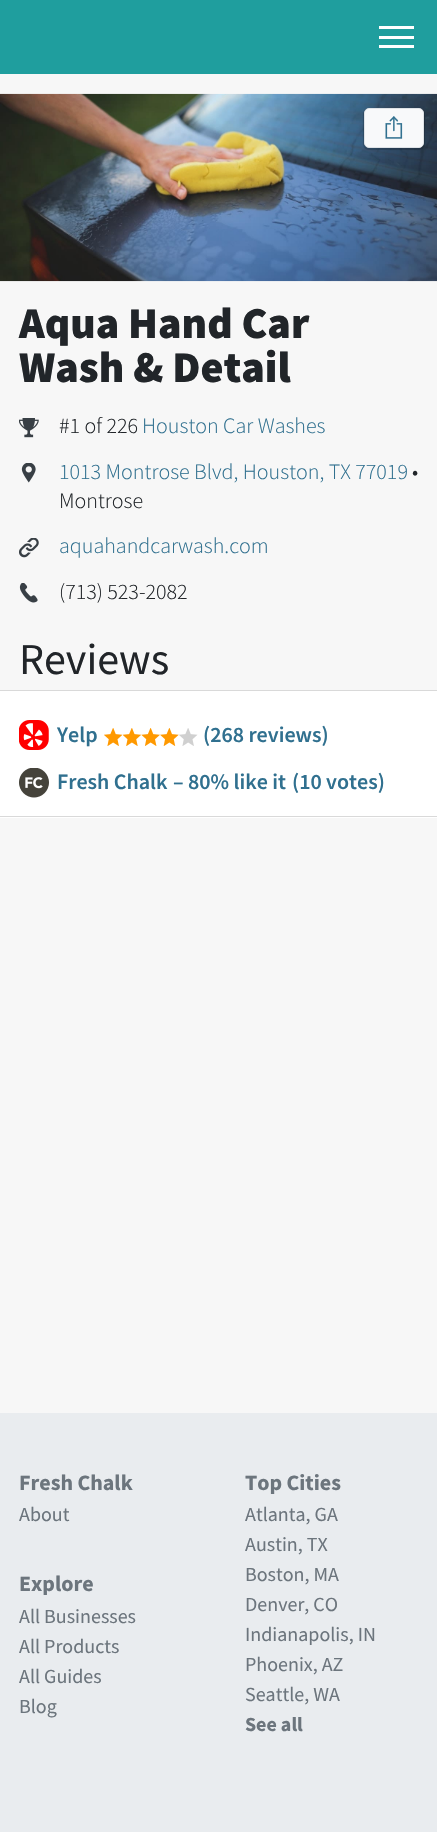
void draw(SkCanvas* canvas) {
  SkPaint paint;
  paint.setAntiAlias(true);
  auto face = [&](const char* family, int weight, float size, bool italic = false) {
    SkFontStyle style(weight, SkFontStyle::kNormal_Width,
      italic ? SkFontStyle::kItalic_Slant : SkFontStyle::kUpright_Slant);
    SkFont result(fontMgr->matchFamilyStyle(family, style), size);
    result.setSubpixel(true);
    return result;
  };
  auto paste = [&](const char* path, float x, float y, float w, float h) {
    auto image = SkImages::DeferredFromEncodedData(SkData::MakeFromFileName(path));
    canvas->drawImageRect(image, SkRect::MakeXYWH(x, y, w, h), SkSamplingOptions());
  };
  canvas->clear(0xfff7f7f7);
  {
    const struct { float x, y, w, h; SkColor color; } items[] = {
      {0, 0, 437, 74, 0xff1f9e9e},
      {379, 26, 35, 3, 0xffffffff},
      {379, 36, 35, 3, 0xffffffff},
      {379, 45, 35, 3, 0xffffffff},
    };
    for (auto [x, y, w, h, color] : items) {
      paint.setColor(color);
      canvas->drawRect(SkRect::MakeXYWH(x, y, w, h), paint);
    }
  }
  paste("img/1.png", 0, 93, 437, 189);
  paint.setColor(0x33000000);
  paint.setMaskFilter(SkMaskFilter::MakeBlur(kNormal_SkBlurStyle, 0.5f));
  canvas->drawRoundRect(SkRect::MakeXYWH(363, 108, 62, 42), 6, 6, paint);
  paint.setMaskFilter(nullptr);
  paint.setColor(0xfff8f9fa);
  canvas->drawRoundRect(SkRect::MakeXYWH(364.5f, 108.5f, 59, 39), 4.5f, 4.5f, paint);
  paint.setStroke(true);
  paint.setStrokeWidth(1);
  paint.setColor(0xffdee2e6);
  canvas->drawRoundRect(SkRect::MakeXYWH(364.5f, 108.5f, 59, 39), 4.5f, 4.5f, paint);
  paste("img/2.png", 385, 116, 18, 23);
  paste("img/3.png", 19, 418, 20, 20);
  paste("img/4.png", 21, 463, 15, 20);
  paste("img/5.png", 19, 538, 20, 20);
  paste("img/6.png", 19, 583, 19, 20);
  paint.setStroke(false);
  {
    const struct { float x, y, w, h; SkColor color; } items[] = {
      {0, 691, 437, 127, 0xffffffff},
      {0, 690, 437, 1, 0xffd9d9d9},
      {0, 816, 437, 1, 0xffd9d9d9},
    };
    for (auto [x, y, w, h, color] : items) {
      paint.setColor(color);
      canvas->drawRect(SkRect::MakeXYWH(x, y, w, h), paint);
    }
  }
  paste("img/7.png", 19, 720, 30, 30);
  paste("img/8.png", 104, 728, 19, 18);
  paste("img/9.png", 123, 728, 18, 18);
  paste("img/10.png", 141, 728, 19, 18);
  paste("img/11.png", 160, 728, 19, 18);
  paste("img/12.png", 179, 728, 19, 18);
  paste("img/13.png", 19, 768, 30, 30);
  paint.setColor(0xffe9ecef);
  canvas->drawRect(SkRect::MakeXYWH(0, 1413, 437, 419), paint);
  auto f0 = face("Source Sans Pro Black", 900, 44);
  paint.setColor(0xff212529);
  canvas->drawString("Aqua Hand Car", 19, 338, f0, paint);
  canvas->drawString("Wash & Detail", 19, 382, f0, paint);
  auto f1 = face("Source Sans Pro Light", 300, 22);
  canvas->drawString("#1 of 226", 59, 433, f1, paint);
  paint.setColor(0xff30708f);
  canvas->drawString("Houston Car Washes", 142, 433, f1, paint);
  canvas->drawString("1013 Montrose Blvd, Houston, TX 77019", 59, 479, f1, paint);
  paint.setColor(0xff212529);
  canvas->drawString("•", 412, 479, f1, paint);
  canvas->drawString("Montrose", 59, 508, f1, paint);
  paint.setColor(0xff30708f);
  canvas->drawString("aquahandcarwash.com", 59, 553, f1, paint);
  paint.setColor(0xff212529);
  canvas->drawString("(713) 523-2082", 59, 599, f1, paint);
  auto f2 = face("Source Sans Pro", 400, 44);
  canvas->drawString("Reviews", 19, 674, f2, paint);
  auto f3 = face("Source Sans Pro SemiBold", 600, 22);
  paint.setColor(0xff30708f);
  {
    const struct { const char* s; float x, y; } items[] = {
      {"Yelp", 57, 742},
      {"(268 reviews)", 203, 742},
      {"Fresh Chalk", 57, 789},
      {"– 80% like it", 173, 789},
      {"(10 votes)", 292, 789},
    };
    for (auto [s, x, y] : items) {
      canvas->drawString(s, x, y, f3, paint);
    }
  }
  auto f4 = face("Source Sans Pro", 700, 22);
  paint.setColor(0xff6c757d);
  canvas->drawString("Fresh Chalk", 19, 1490, f4, paint);
  auto f5 = face("Source Sans Pro", 400, 20);
  canvas->drawString("About", 19, 1521, f5, paint);
  canvas->drawString("Top Cities", 245, 1490, f4, paint);
  {
    const struct { const char* s; float x, y; } items[] = {
      {"Atlanta, GA", 245, 1521},
      {"Austin, TX", 245, 1551},
      {"Boston, MA", 245, 1581},
      {"Denver, CO", 245, 1611},
      {"Indianapolis, IN", 245, 1641},
      {"Phoenix, AZ", 245, 1671},
      {"Seattle, WA", 245, 1701},
    };
    for (auto [s, x, y] : items) {
      canvas->drawString(s, x, y, f5, paint);
    }
  }
  auto f6 = face("Source Sans Pro", 700, 20);
  canvas->drawString("See all", 245, 1731, f6, paint);
  canvas->drawString("Explore", 19, 1591, f4, paint);
  {
    const struct { const char* s; float x, y; } items[] = {
      {"All Businesses", 19, 1623},
      {"All Products", 19, 1653},
      {"All Guides", 19, 1683},
      {"Blog", 19, 1713},
    };
    for (auto [s, x, y] : items) {
      canvas->drawString(s, x, y, f5, paint);
    }
  }
}
